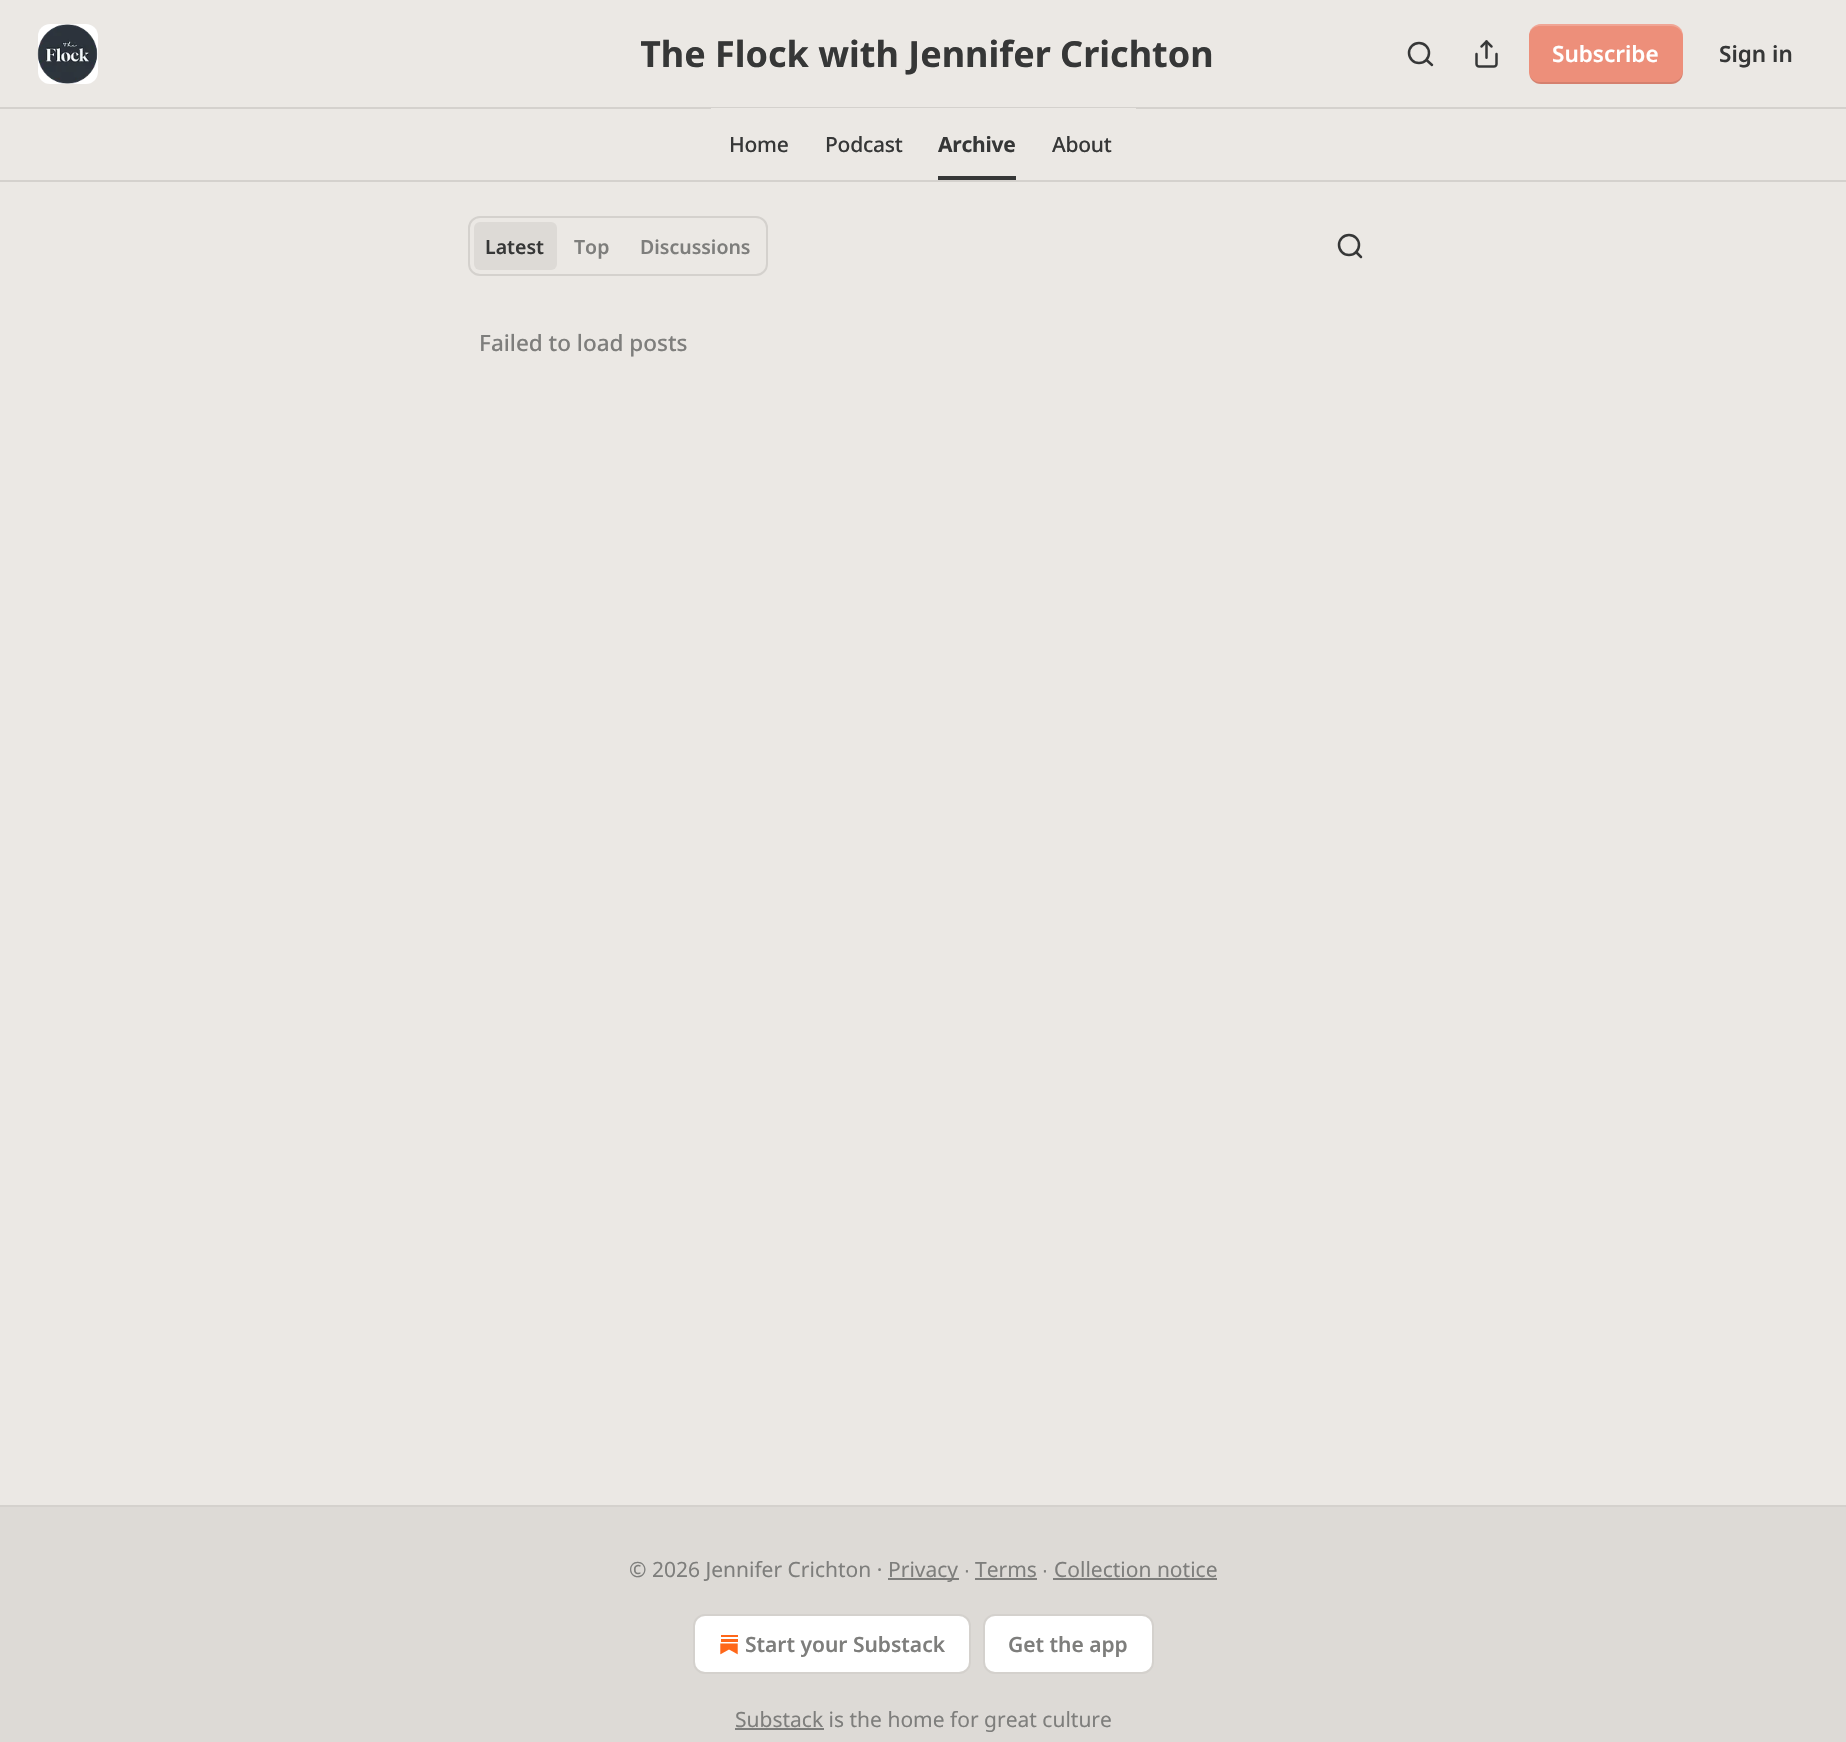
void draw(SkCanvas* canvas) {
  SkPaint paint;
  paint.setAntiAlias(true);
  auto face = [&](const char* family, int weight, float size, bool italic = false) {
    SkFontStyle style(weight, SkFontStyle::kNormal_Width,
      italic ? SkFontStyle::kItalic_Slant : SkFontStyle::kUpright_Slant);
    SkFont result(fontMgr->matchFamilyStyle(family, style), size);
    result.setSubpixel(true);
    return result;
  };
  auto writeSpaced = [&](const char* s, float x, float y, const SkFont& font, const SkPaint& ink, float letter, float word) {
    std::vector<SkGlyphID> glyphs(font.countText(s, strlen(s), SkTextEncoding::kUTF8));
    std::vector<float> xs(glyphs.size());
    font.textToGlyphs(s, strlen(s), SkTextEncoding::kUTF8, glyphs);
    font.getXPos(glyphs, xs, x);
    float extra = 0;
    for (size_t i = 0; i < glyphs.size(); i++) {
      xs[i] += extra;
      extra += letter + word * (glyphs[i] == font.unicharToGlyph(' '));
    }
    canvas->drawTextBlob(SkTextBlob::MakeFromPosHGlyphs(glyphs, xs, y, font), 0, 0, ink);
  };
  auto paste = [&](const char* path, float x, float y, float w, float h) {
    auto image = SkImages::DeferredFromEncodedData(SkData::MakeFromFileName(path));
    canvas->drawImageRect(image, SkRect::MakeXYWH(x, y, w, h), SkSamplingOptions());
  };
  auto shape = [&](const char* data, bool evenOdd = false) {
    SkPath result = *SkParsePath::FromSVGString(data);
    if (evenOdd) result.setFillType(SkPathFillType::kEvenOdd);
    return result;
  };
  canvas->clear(0xffebe8e4);
  paint.setColor(0xffffffff);
  canvas->drawRoundRect(SkRect::MakeXYWH(38, 24, 60, 60), 12, 12, paint);
  paste("img/1.png", 37, 24, 61, 60);
  paint.setStroke(true);
  paint.setStrokeWidth(2.5f);
  paint.setColor(0xff363737);
  canvas->drawCircle(1419, 53, 10, paint);
  paint.setStrokeCap(SkPaint::kRound_Cap);
  paint.setStrokeJoin(SkPaint::kRound_Join);
  canvas->drawPath(shape("M1432 65L1426.5 60"), paint);
  paste("img/2.png", 1475, 40, 23, 28);
  paint.setStroke(false);
  paint.setColor(0xffed8f7a);
  canvas->drawRoundRect(SkRect::MakeXYWH(1529, 24, 154, 60), 12, 12, paint);
  paint.setColor(0x1a000000);
  canvas->drawPath(shape("M1530 76C1531 81 1536 84 1541 84H1671C1678 84 1683 79 1683 72V70C1683 77 1678 82 1671 82H1540C1536 82 1532 80 1530 76Z"), paint);
  paint.setColor(0x33ffffff);
  canvas->drawPath(shape("M1540 26H1671C1678 26 1683 31 1683 38V36C1683 29 1678 24 1671 24H1541C1536 24 1531 27 1530 32C1532 28 1536 26 1540 26Z"), paint);
  {
    const struct { float x, y, w, h; SkColor color; } items[] = {
      {0, 107, 1846, 2, 0xffd4d1cd},
      {0, 180, 1846, 2, 0xffd4d1cd},
      {711, 108, 425, 1, 0xffebe8e4},
      {938, 176, 78, 4, 0xff363737},
    };
    for (auto [x, y, w, h, color] : items) {
      paint.setColor(color);
      canvas->drawRect(SkRect::MakeXYWH(x, y, w, h), paint);
    }
  }
  paint.setStroke(true);
  paint.setStrokeWidth(2);
  paint.setStrokeCap(SkPaint::kButt_Cap);
  paint.setStrokeJoin(SkPaint::kMiter_Join);
  paint.setColor(0xffd4d1cd);
  canvas->drawRoundRect(SkRect::MakeXYWH(469, 217, 298, 58), 11, 11, paint);
  paint.setStroke(false);
  paint.setColor(0xffdddad6);
  canvas->drawRoundRect(SkRect::MakeXYWH(474, 222, 83, 48), 6, 6, paint);
  paint.setStroke(true);
  paint.setStrokeWidth(2.5f);
  paint.setColor(0xff363737);
  canvas->drawCircle(1349, 245, 10, paint);
  paint.setStrokeCap(SkPaint::kRound_Cap);
  paint.setStrokeJoin(SkPaint::kRound_Join);
  canvas->drawPath(shape("M1361 257L1356 252"), paint);
  paint.setStroke(false);
  {
    const struct { float x, y, w, h; SkColor color; } items[] = {
      {0, 1507, 1846, 235, 0xffdddad6},
      {0, 1505, 1846, 2, 0xffd4d1cd},
      {888, 1578, 71, 2, 0xff7e7e7c},
      {975, 1578, 62, 2, 0xff7e7e7c},
      {1053, 1578, 164, 2, 0xff7e7e7c},
    };
    for (auto [x, y, w, h, color] : items) {
      paint.setColor(color);
      canvas->drawRect(SkRect::MakeXYWH(x, y, w, h), paint);
    }
  }
  paint.setColor(0xffffffff);
  canvas->drawRoundRect(SkRect::MakeXYWH(694, 1615, 276, 58), 11, 11, paint);
  paint.setStroke(true);
  paint.setStrokeWidth(2);
  paint.setStrokeCap(SkPaint::kButt_Cap);
  paint.setStrokeJoin(SkPaint::kMiter_Join);
  paint.setColor(0xffd4d1cd);
  canvas->drawRoundRect(SkRect::MakeXYWH(694, 1615, 276, 58), 11, 11, paint);
  paste("img/3.png", 720, 1635, 18, 20);
  paint.setStroke(false);
  paint.setColor(0xffffffff);
  canvas->drawRoundRect(SkRect::MakeXYWH(984, 1615, 169, 58), 11, 11, paint);
  paint.setStroke(true);
  paint.setColor(0xffd4d1cd);
  canvas->drawRoundRect(SkRect::MakeXYWH(984, 1615, 169, 58), 11, 11, paint);
  paint.setStroke(false);
  paint.setColor(0xff7e7e7c);
  canvas->drawRect(SkRect::MakeXYWH(735, 1728, 89, 2), paint);
  canvas->save();
  canvas->clipRect(SkRect::MakeXYWH(641, 30, 573, 48));
  auto f0 = face("Noto Sans", 700, 36);
  paint.setColor(0xff363737);
  canvas->drawString("The Flock with Jennifer Crichton", 640, 67, f0, paint);
  canvas->restore();
  auto f1 = face("Noto Sans", 600, 22.5f);
  paint.setColor(0xffffffff);
  canvas->drawString("Subscribe", 1552, 62, f1, paint);
  paint.setColor(0xff363737);
  canvas->drawString("Sign in", 1719, 62, f1, paint);
  auto f2 = face("Noto Sans", 500, 21);
  writeSpaced("Home", 729, 152, f2, paint, -0.25f, 0);
  writeSpaced("Podcast", 825, 152, f2, paint, -0.25f, 0);
  auto f3 = face("Noto Sans", 700, 21);
  writeSpaced("Archive", 938, 152, f3, paint, -0.25f, 0);
  writeSpaced("About", 1052, 152, f2, paint, -0.25f, 0);
  auto f4 = face("Noto Sans", 600, 19.5f);
  paint.setColor(0xff7e7e7c);
  canvas->drawString("Discussions", 640, 254, f4, paint);
  paint.setColor(0xff363737);
  canvas->drawString("Latest", 485, 254, f4, paint);
  paint.setColor(0xff7e7e7c);
  canvas->drawString("Top", 574, 254, f4, paint);
  auto f5 = face("Noto Sans", 500, 22.5f);
  canvas->drawString("Failed to load posts", 479, 351, f5, paint);
  auto f6 = face("Noto Sans", 400, 21);
  canvas->drawString("© 2026 Jennifer Crichton ·", 629, 1577, f6, paint);
  canvas->drawString("Privacy", 888, 1577, f6, paint);
  auto f7 = face("Liberation Sans", 400, 21);
  canvas->drawString("∙", 964, 1577, f7, paint);
  canvas->drawString("Terms", 975, 1577, f6, paint);
  canvas->drawString("∙", 1042, 1577, f7, paint);
  canvas->drawString("Collection notice", 1054, 1577, f6, paint);
  auto f8 = face("Noto Sans", 600, 21);
  canvas->drawString("Start your Substack", 745, 1652, f8, paint);
  canvas->drawString("Get the app", 1008, 1652, f8, paint);
  canvas->drawString("Substack is the home for great culture", 735, 1727, f6, paint);
}
